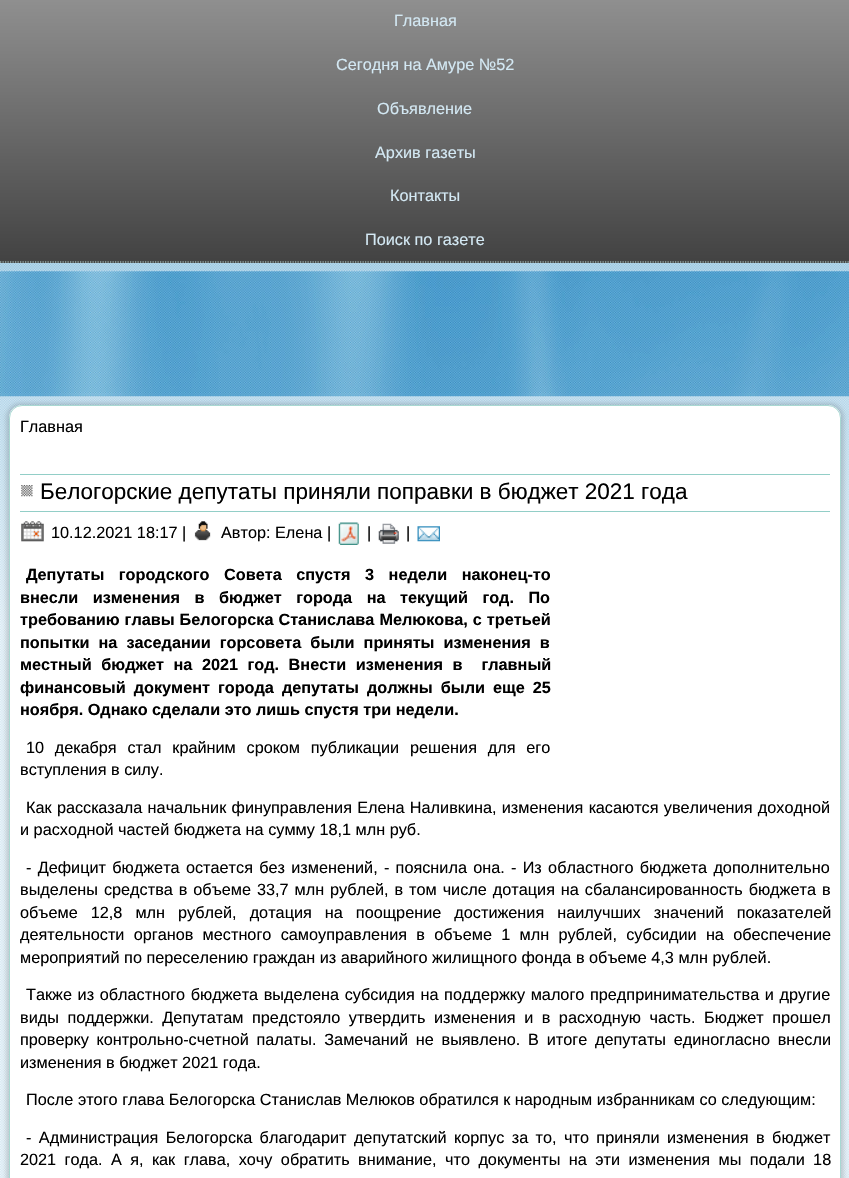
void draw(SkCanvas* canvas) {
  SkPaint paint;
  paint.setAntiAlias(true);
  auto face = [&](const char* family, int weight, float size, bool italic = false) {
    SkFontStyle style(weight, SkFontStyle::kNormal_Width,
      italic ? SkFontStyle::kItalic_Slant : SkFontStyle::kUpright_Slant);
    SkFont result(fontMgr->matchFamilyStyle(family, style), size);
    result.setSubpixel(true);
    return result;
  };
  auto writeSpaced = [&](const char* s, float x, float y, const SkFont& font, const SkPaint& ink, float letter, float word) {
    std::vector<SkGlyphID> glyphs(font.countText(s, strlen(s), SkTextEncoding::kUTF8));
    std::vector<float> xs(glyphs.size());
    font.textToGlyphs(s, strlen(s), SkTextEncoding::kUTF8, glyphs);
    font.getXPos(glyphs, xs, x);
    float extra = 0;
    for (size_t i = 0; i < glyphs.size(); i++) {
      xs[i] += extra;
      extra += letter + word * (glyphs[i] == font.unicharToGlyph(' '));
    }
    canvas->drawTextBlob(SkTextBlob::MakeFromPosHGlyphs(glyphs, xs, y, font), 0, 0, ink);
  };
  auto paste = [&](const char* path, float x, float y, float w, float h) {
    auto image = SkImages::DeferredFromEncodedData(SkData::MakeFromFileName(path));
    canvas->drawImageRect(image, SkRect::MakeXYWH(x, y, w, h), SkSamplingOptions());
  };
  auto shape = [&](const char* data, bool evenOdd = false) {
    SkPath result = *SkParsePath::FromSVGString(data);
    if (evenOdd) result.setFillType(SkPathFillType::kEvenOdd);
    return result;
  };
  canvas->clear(0xffffffff);
  paste("img/1.png", 0, 263, 849, 915);
  {
    const SkColor colors[] = {0xff8f8f8f, 0xff808080, 0xff424242};
    const float stops[] = {0, 0.2f, 1};
    const SkPoint ends[] = {{425, 0}, {425, 263}};
    paint.setShader(SkGradientShader::MakeLinear(ends, colors, stops, 3, SkTileMode::kClamp));
    paint.setAlpha(255);
  }
  canvas->drawRect(SkRect::MakeXYWH(0, 0, 849, 263), paint);
  paint.setStroke(true);
  paint.setStrokeWidth(1.2f);
  paint.setShader(nullptr);
  paint.setColor(0xffc3e4e0);
  paint.setPathEffect(SkDashPathEffect::Make({{1.25f, 1.25f}}, 0));
  canvas->drawPath(shape("M0 262H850"), paint);
  paint.setPathEffect(nullptr);
  paste("img/2.png", 0, 271, 849, 126);
  paint.setStroke(false);
  paint.setColor(0x26000000);
  paint.setMaskFilter(SkMaskFilter::MakeBlur(kNormal_SkBlurStyle, 2));
  canvas->drawRoundRect(SkRect::MakeXYWH(6, 403, 838, 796), 15, 15, paint);
  paint.setMaskFilter(nullptr);
  paint.setColor(0xffffffff);
  canvas->drawRoundRect(SkRect::MakeXYWH(9, 405, 832, 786), 13, 13, paint);
  paint.setStroke(true);
  paint.setStrokeWidth(1);
  paint.setColor(0xcc92cec7);
  canvas->drawRoundRect(SkRect::MakeXYWH(9.5f, 405.5f, 831, 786), 12.5f, 12.5f, paint);
  paint.setStroke(false);
  paint.setColor(0xff92cec7);
  canvas->drawRect(SkRect::MakeXYWH(20, 474, 810, 1), paint);
  canvas->drawRect(SkRect::MakeXYWH(20, 511, 810, 1), paint);
  paste("img/3.png", 21, 485, 12, 12);
  paste("img/4.png", 21, 521, 23, 21);
  paste("img/5.png", 194, 521, 17, 20);
  paste("img/6.png", 338, 522, 21, 23);
  paste("img/7.png", 378, 523, 21, 21);
  paste("img/8.png", 417, 526, 23, 16);
  auto f0 = face("Liberation Sans", 400, 16.25f);
  paint.setColor(0xffd3e8f3);
  {
    const struct { const char* s; float x, y; } items[] = {
      {"Главная", 394, 26},
      {"Сегодня на Амуре №52", 336, 70},
      {"Объявление", 377, 114},
      {"Архив газеты", 375, 158},
      {"Контакты", 390, 201},
      {"Поиск по газете", 365, 245},
    };
    for (auto [s, x, y] : items) {
      canvas->drawString(s, x, y, f0, paint);
    }
  }
  paint.setColor(0xff000000);
  canvas->drawString("Главная", 20, 432, f0, paint);
  auto f1 = face("Liberation Sans", 400, 22.5f);
  canvas->drawString("Белогорские депутаты приняли поправки в бюджет 2021 года", 40, 499, f1, paint);
  {
    const struct { const char* s; float x, y; } items[] = {
      {"10.12.2021 18:17 |", 51, 538},
      {"Автор: Елена |", 221, 538},
      {"|", 367, 538},
      {"|", 406, 538},
    };
    for (auto [s, x, y] : items) {
      canvas->drawString(s, x, y, f0, paint);
    }
  }
  auto f2 = face("Liberation Sans", 700, 16.25f);
  writeSpaced("Депутаты городского Совета спустя 3 недели наконец-то", 26, 580, f2, paint, 0, 10);
  writeSpaced("внесли изменения в бюджет города на текущий год. По", 20, 603, f2, paint, 0, 10);
  writeSpaced("требованию главы Белогорска Станислава Мелюкова, с третьей", 20, 625, f2, paint, 0, 0.5f);
  writeSpaced("попытки на заседании горсовета были приняты изменения в", 20, 648, f2, paint, 0, 4.5f);
  writeSpaced("местный бюджет на 2021 год. Внести изменения в  главный", 20, 670, f2, paint, 0, 5);
  writeSpaced("финансовый документ города депутаты должны были еще 25", 20, 693, f2, paint, 0, 3.5f);
  canvas->drawString("ноября. Однако сделали это лишь спустя три недели.", 20, 715, f2, paint);
  writeSpaced("10 декабря стал крайним сроком публикации решения для его", 26, 753, f0, paint, 0, 6.25f);
  canvas->drawString("вступления в силу.", 20, 775, f0, paint);
  writeSpaced("Как рассказала начальник финуправления Елена Наливкина, изменения касаются увеличения доходной", 26, 813, f0, paint, 0, 0.75f);
  canvas->drawString("и расходной частей бюджета на сумму 18,1 млн руб.", 20, 835, f0, paint);
  writeSpaced("- Дефицит бюджета остается без изменений, - пояснила она. - Из областного бюджета дополнительно", 26, 873, f0, paint, 0, 1.75f);
  writeSpaced("выделены средства в объеме 33,7 млн рублей, в том числе дотация на сбалансированность бюджета в", 20, 895, f0, paint, 0, 1.4f);
  writeSpaced("объеме 12,8 млн рублей, дотация на поощрение достижения наилучших значений показателей", 20, 918, f0, paint, 0, 8.5f);
  writeSpaced("деятельности органов местного самоуправления в объеме 1 млн рублей, субсидии на обеспечение", 20, 940, f0, paint, 0, 4.75f);
  canvas->drawString("мероприятий по переселению граждан из аварийного жилищного фонда в объеме 4,3 млн рублей.", 20, 963, f0, paint);
  writeSpaced("Также из областного бюджета выделена субсидия на поддержку малого предпринимательства и другие", 26, 1000, f0, paint, 0, 1.1f);
  writeSpaced("виды поддержки. Депутатам предстояло утвердить изменения и в расходную часть. Бюджет прошел", 20, 1023, f0, paint, 0, 4);
  writeSpaced("проверку контрольно-счетной палаты. Замечаний не выявлено. В итоге депутаты единогласно внесли", 20, 1045, f0, paint, 0, 3.25f);
  canvas->drawString("изменения в бюджет 2021 года.", 20, 1068, f0, paint);
  canvas->drawString("После этого глава Белогорска Станислав Мелюков обратился к народным избранникам со следующим:", 26, 1105, f0, paint);
  writeSpaced("- Администрация Белогорска благодарит депутатский корпус за то, что приняли изменения в бюджет", 26, 1143, f0, paint, 0, 2.9f);
  writeSpaced("2021 года. А я, как глава, хочу обратить внимание, что документы на эти изменения мы подали 18", 20, 1165, f0, paint, 0, 3.9f);
}
